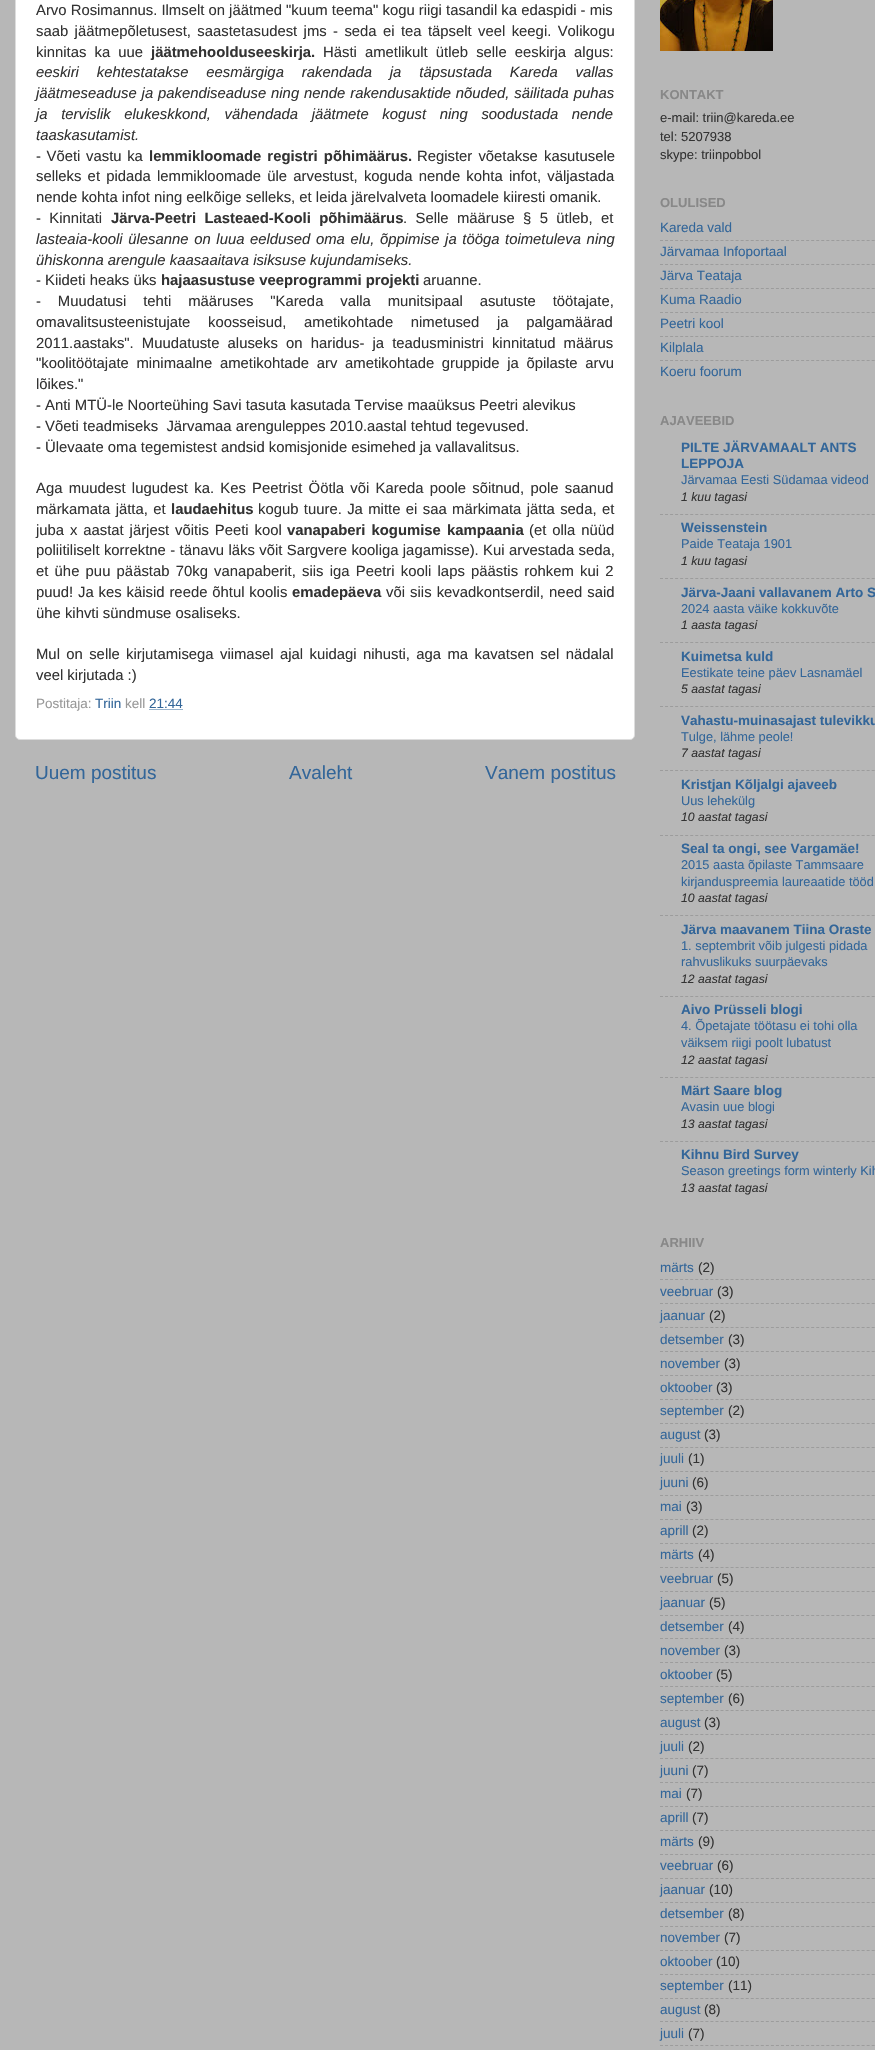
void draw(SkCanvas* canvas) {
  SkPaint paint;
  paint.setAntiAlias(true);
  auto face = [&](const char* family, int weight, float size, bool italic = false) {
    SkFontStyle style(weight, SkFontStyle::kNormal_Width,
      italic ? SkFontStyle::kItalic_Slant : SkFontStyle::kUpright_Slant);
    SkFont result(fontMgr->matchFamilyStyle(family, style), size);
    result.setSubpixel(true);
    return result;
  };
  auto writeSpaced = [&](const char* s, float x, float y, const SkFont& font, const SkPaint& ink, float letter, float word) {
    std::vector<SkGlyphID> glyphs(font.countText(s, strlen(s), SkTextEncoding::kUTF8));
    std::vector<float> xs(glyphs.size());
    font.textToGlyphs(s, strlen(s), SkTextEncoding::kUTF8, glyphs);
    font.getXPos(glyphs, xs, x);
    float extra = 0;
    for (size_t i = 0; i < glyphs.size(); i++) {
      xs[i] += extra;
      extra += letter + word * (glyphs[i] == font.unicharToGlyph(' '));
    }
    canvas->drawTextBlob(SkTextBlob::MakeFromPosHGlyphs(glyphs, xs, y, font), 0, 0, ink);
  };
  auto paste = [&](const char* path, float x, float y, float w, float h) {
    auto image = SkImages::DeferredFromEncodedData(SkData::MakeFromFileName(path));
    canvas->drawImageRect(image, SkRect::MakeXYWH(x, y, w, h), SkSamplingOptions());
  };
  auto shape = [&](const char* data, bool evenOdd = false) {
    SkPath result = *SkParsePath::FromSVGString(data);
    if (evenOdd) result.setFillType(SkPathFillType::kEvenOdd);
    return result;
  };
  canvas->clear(0xffb7b7b7);
  paint.setColor(0xffffffff);
  canvas->drawRoundRect(SkRect::MakeXYWH(15.5f, -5.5f, 619, 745), 4.5f, 4.5f, paint);
  paint.setStroke(true);
  paint.setStrokeWidth(1);
  paint.setColor(0xffdddddd);
  canvas->drawRoundRect(SkRect::MakeXYWH(15.5f, -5.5f, 619, 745), 4.5f, 4.5f, paint);
  paint.setColor(0xff336699);
  paint.setPathEffect(SkDashPathEffect::Make({{1, 1}}, 0));
  canvas->drawPath(shape("M149.5 709.5H183"), paint);
  paint.setPathEffect(nullptr);
  paste("img/1.png", 660, 0, 113, 51);
  paint.setColor(0xff9c9c9c);
  paint.setPathEffect(SkDashPathEffect::Make({{3, 2.04f}}, 0));
  canvas->drawPath(shape("M660 240.5H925"), paint);
  paint.setPathEffect(nullptr);
  paint.setPathEffect(SkDashPathEffect::Make({{3, 2.04f}}, 0));
  canvas->drawPath(shape("M660 264.5H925"), paint);
  paint.setPathEffect(nullptr);
  paint.setPathEffect(SkDashPathEffect::Make({{3, 2.04f}}, 0));
  canvas->drawPath(shape("M660 288.5H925"), paint);
  paint.setPathEffect(nullptr);
  paint.setPathEffect(SkDashPathEffect::Make({{3, 2.04f}}, 0));
  canvas->drawPath(shape("M660 312.5H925"), paint);
  paint.setPathEffect(nullptr);
  paint.setPathEffect(SkDashPathEffect::Make({{3, 2.04f}}, 0));
  canvas->drawPath(shape("M660 336.5H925"), paint);
  paint.setPathEffect(nullptr);
  paint.setPathEffect(SkDashPathEffect::Make({{3, 2.04f}}, 0));
  canvas->drawPath(shape("M660 360.5H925"), paint);
  paint.setPathEffect(nullptr);
  paint.setPathEffect(SkDashPathEffect::Make({{3, 2.04f}}, 0));
  canvas->drawPath(shape("M660 514.5H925"), paint);
  paint.setPathEffect(nullptr);
  paint.setPathEffect(SkDashPathEffect::Make({{3, 2.04f}}, 0));
  canvas->drawPath(shape("M660 578.5H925"), paint);
  paint.setPathEffect(nullptr);
  paint.setPathEffect(SkDashPathEffect::Make({{3, 2.04f}}, 0));
  canvas->drawPath(shape("M660 642.5H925"), paint);
  paint.setPathEffect(nullptr);
  paint.setPathEffect(SkDashPathEffect::Make({{3, 2.04f}}, 0));
  canvas->drawPath(shape("M660 706.5H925"), paint);
  paint.setPathEffect(nullptr);
  paint.setPathEffect(SkDashPathEffect::Make({{3, 2.04f}}, 0));
  canvas->drawPath(shape("M660 770.5H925"), paint);
  paint.setPathEffect(nullptr);
  paint.setPathEffect(SkDashPathEffect::Make({{3, 2.04f}}, 0));
  canvas->drawPath(shape("M660 835.5H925"), paint);
  paint.setPathEffect(nullptr);
  paint.setPathEffect(SkDashPathEffect::Make({{3, 2.04f}}, 0));
  canvas->drawPath(shape("M660 915.5H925"), paint);
  paint.setPathEffect(nullptr);
  paint.setPathEffect(SkDashPathEffect::Make({{3, 2.04f}}, 0));
  canvas->drawPath(shape("M660 996.5H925"), paint);
  paint.setPathEffect(nullptr);
  paint.setPathEffect(SkDashPathEffect::Make({{3, 2.04f}}, 0));
  canvas->drawPath(shape("M660 1077.5H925"), paint);
  paint.setPathEffect(nullptr);
  paint.setPathEffect(SkDashPathEffect::Make({{3, 2.04f}}, 0));
  canvas->drawPath(shape("M660 1141.5H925"), paint);
  paint.setPathEffect(nullptr);
  paint.setPathEffect(SkDashPathEffect::Make({{3, 2.04f}}, 0));
  canvas->drawPath(shape("M660 1279.5H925"), paint);
  paint.setPathEffect(nullptr);
  paint.setPathEffect(SkDashPathEffect::Make({{3, 2.04f}}, 0));
  canvas->drawPath(shape("M660 1303.5H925"), paint);
  paint.setPathEffect(nullptr);
  paint.setPathEffect(SkDashPathEffect::Make({{3, 2.04f}}, 0));
  canvas->drawPath(shape("M660 1327.5H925"), paint);
  paint.setPathEffect(nullptr);
  paint.setPathEffect(SkDashPathEffect::Make({{3, 2.04f}}, 0));
  canvas->drawPath(shape("M660 1351.5H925"), paint);
  paint.setPathEffect(nullptr);
  paint.setPathEffect(SkDashPathEffect::Make({{3, 2.04f}}, 0));
  canvas->drawPath(shape("M660 1375.5H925"), paint);
  paint.setPathEffect(nullptr);
  paint.setPathEffect(SkDashPathEffect::Make({{3, 2.04f}}, 0));
  canvas->drawPath(shape("M660 1399.5H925"), paint);
  paint.setPathEffect(nullptr);
  paint.setPathEffect(SkDashPathEffect::Make({{3, 2.04f}}, 0));
  canvas->drawPath(shape("M660 1423.5H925"), paint);
  paint.setPathEffect(nullptr);
  paint.setPathEffect(SkDashPathEffect::Make({{3, 2.04f}}, 0));
  canvas->drawPath(shape("M660 1447.5H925"), paint);
  paint.setPathEffect(nullptr);
  paint.setPathEffect(SkDashPathEffect::Make({{3, 2.04f}}, 0));
  canvas->drawPath(shape("M660 1471.5H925"), paint);
  paint.setPathEffect(nullptr);
  paint.setPathEffect(SkDashPathEffect::Make({{3, 2.04f}}, 0));
  canvas->drawPath(shape("M660 1495.5H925"), paint);
  paint.setPathEffect(nullptr);
  paint.setPathEffect(SkDashPathEffect::Make({{3, 2.04f}}, 0));
  canvas->drawPath(shape("M660 1519.5H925"), paint);
  paint.setPathEffect(nullptr);
  paint.setPathEffect(SkDashPathEffect::Make({{3, 2.04f}}, 0));
  canvas->drawPath(shape("M660 1543.5H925"), paint);
  paint.setPathEffect(nullptr);
  paint.setPathEffect(SkDashPathEffect::Make({{3, 2.04f}}, 0));
  canvas->drawPath(shape("M660 1567.5H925"), paint);
  paint.setPathEffect(nullptr);
  paint.setPathEffect(SkDashPathEffect::Make({{3, 2.04f}}, 0));
  canvas->drawPath(shape("M660 1591.5H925"), paint);
  paint.setPathEffect(nullptr);
  paint.setPathEffect(SkDashPathEffect::Make({{3, 2.04f}}, 0));
  canvas->drawPath(shape("M660 1615.5H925"), paint);
  paint.setPathEffect(nullptr);
  paint.setPathEffect(SkDashPathEffect::Make({{3, 2.04f}}, 0));
  canvas->drawPath(shape("M660 1638.5H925"), paint);
  paint.setPathEffect(nullptr);
  paint.setPathEffect(SkDashPathEffect::Make({{3, 2.04f}}, 0));
  canvas->drawPath(shape("M660 1662.5H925"), paint);
  paint.setPathEffect(nullptr);
  paint.setPathEffect(SkDashPathEffect::Make({{3, 2.04f}}, 0));
  canvas->drawPath(shape("M660 1686.5H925"), paint);
  paint.setPathEffect(nullptr);
  paint.setPathEffect(SkDashPathEffect::Make({{3, 2.04f}}, 0));
  canvas->drawPath(shape("M660 1710.5H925"), paint);
  paint.setPathEffect(nullptr);
  paint.setPathEffect(SkDashPathEffect::Make({{3, 2.04f}}, 0));
  canvas->drawPath(shape("M660 1734.5H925"), paint);
  paint.setPathEffect(nullptr);
  paint.setPathEffect(SkDashPathEffect::Make({{3, 2.04f}}, 0));
  canvas->drawPath(shape("M660 1758.5H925"), paint);
  paint.setPathEffect(nullptr);
  paint.setPathEffect(SkDashPathEffect::Make({{3, 2.04f}}, 0));
  canvas->drawPath(shape("M660 1782.5H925"), paint);
  paint.setPathEffect(nullptr);
  paint.setPathEffect(SkDashPathEffect::Make({{3, 2.04f}}, 0));
  canvas->drawPath(shape("M660 1806.5H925"), paint);
  paint.setPathEffect(nullptr);
  paint.setPathEffect(SkDashPathEffect::Make({{3, 2.04f}}, 0));
  canvas->drawPath(shape("M660 1830.5H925"), paint);
  paint.setPathEffect(nullptr);
  paint.setPathEffect(SkDashPathEffect::Make({{3, 2.04f}}, 0));
  canvas->drawPath(shape("M660 1854.5H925"), paint);
  paint.setPathEffect(nullptr);
  paint.setPathEffect(SkDashPathEffect::Make({{3, 2.04f}}, 0));
  canvas->drawPath(shape("M660 1878.5H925"), paint);
  paint.setPathEffect(nullptr);
  paint.setPathEffect(SkDashPathEffect::Make({{3, 2.04f}}, 0));
  canvas->drawPath(shape("M660 1902.5H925"), paint);
  paint.setPathEffect(nullptr);
  paint.setPathEffect(SkDashPathEffect::Make({{3, 2.04f}}, 0));
  canvas->drawPath(shape("M660 1926.5H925"), paint);
  paint.setPathEffect(nullptr);
  paint.setPathEffect(SkDashPathEffect::Make({{3, 2.04f}}, 0));
  canvas->drawPath(shape("M660 1950.5H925"), paint);
  paint.setPathEffect(nullptr);
  paint.setPathEffect(SkDashPathEffect::Make({{3, 2.04f}}, 0));
  canvas->drawPath(shape("M660 1974.5H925"), paint);
  paint.setPathEffect(nullptr);
  paint.setPathEffect(SkDashPathEffect::Make({{3, 2.04f}}, 0));
  canvas->drawPath(shape("M660 1998.5H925"), paint);
  paint.setPathEffect(nullptr);
  paint.setPathEffect(SkDashPathEffect::Make({{3, 2.04f}}, 0));
  canvas->drawPath(shape("M660 2021.5H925"), paint);
  paint.setPathEffect(nullptr);
  paint.setPathEffect(SkDashPathEffect::Make({{3, 2.04f}}, 0));
  canvas->drawPath(shape("M660 2045.5H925"), paint);
  paint.setPathEffect(nullptr);
  auto f0 = face("Liberation Sans", 400, 14.85f);
  paint.setStroke(false);
  paint.setColor(0xff333333);
  canvas->drawString("Arvo Rosimannus. Ilmselt on jäätmed \"kuum teema\" kogu riigi tasandil ka edaspidi - mis", 36, 15, f0, paint);
  writeSpaced("saab jäätmepõletusest, saastetasudest jms - seda ei tea täpselt veel keegi. Volikogu", 36, 36, f0, paint, 0, 2.25f);
  writeSpaced("kinnitas ka uue", 36, 57, f0, paint, 0, 4);
  auto f1 = face("Liberation Sans", 700, 14.85f);
  canvas->drawString("jäätmehoolduseeskirja.", 151, 57, f1, paint);
  writeSpaced("Hästi ametlikult ütleb selle eeskirja algus:", 323, 57, f0, paint, 0, 4);
  auto f2 = face("Liberation Sans", 400, 14.85f, true);
  writeSpaced("eeskiri kehtestatakse eesmärgiga rakendada ja täpsustada Kareda vallas", 36, 77, f2, paint, 0, 13.75f);
  writeSpaced("jäätmeseaduse ja pakendiseaduse ning nende rakendusaktide nõuded, säilitada puhas", 36, 98, f2, paint, 0, 0.75f);
  writeSpaced("ja tervislik elukeskkond, vähendada jäätmete kogust ning soodustada nende", 36, 119, f2, paint, 0, 9.5f);
  canvas->drawString("taaskasutamist.", 36, 140, f2, paint);
  writeSpaced("- Võeti vastu ka", 36, 161, f0, paint, 0, 1.5f);
  writeSpaced("lemmikloomade registri põhimäärus.", 149, 161, f1, paint, 0, 2);
  writeSpaced("Register võetakse kasutusele", 417, 161, f0, paint, 0, 2);
  writeSpaced("selleks et pidada lemmikloomade üle arvestust, koguda nende kohta infot, väljastada", 36, 181, f0, paint, 0, 2.1f);
  canvas->drawString("nende kohta infot ning eelkõige selleks, et leida järelvalveta loomadele kiiresti omanik.", 36, 202, f0, paint);
  writeSpaced("- Kinnitati", 36, 223, f0, paint, 0, 4.25f);
  writeSpaced("Järva-Peetri Lasteaed-Kooli põhimäärus", 111, 223, f1, paint, 0, 4.25f);
  writeSpaced(". Selle määruse § 5 ütleb, et", 403, 223, f0, paint, 0, 4.25f);
  writeSpaced("lasteaia-kooli ülesanne on luua eeldused oma elu, õppimise ja tööga toimetuleva ning", 36, 244, f2, paint, 0, 1.5f);
  canvas->drawString("ühiskonna arengule kaasaaitava isiksuse kujundamiseks.", 36, 265, f2, paint);
  canvas->drawString("- Kiideti heaks üks", 36, 285, f0, paint);
  canvas->drawString("hajaasustuse veeprogrammi projekti", 161, 285, f1, paint);
  canvas->drawString("aruanne.", 423, 285, f0, paint);
  writeSpaced("- Muudatusi tehti määruses \"Kareda valla munitsipaal asutuste töötajate,", 36, 306, f0, paint, 0, 12.75f);
  writeSpaced("omavalitsusteenistujate koosseisud, ametikohtade nimetused ja palgamäärad", 36, 327, f0, paint, 0, 13.5f);
  writeSpaced("2011.aastaks\". Muudatuste aluseks on haridus- ja teadusministri kinnitatud määrus", 36, 348, f0, paint, 0, 4);
  writeSpaced("\"koolitöötajate minimaalne ametikohtade arv ametikohtade gruppide ja õpilaste arvu", 36, 368, f0, paint, 0, 3.5f);
  {
    const struct { const char* s; float x, y; } items[] = {
      {"lõikes.\"", 36, 389},
      {"- Anti MTÜ-le Noorteühing Savi tasuta kasutada Tervise maaüksus Peetri alevikus", 36, 410},
      {"- Võeti teadmiseks  Järvamaa arenguleppes 2010.aastal tehtud tegevused.", 36, 431},
      {"- Ülevaate oma tegemistest andsid komisjonide esimehed ja vallavalitsus.", 36, 452},
    };
    for (auto [s, x, y] : items) {
      canvas->drawString(s, x, y, f0, paint);
    }
  }
  writeSpaced("Aga muudest lugudest ka. Kes Peetrist Öötla või Kareda poole sõitnud, pole saanud", 36, 493, f0, paint, 0, 2.1f);
  writeSpaced("märkamata jätta, et", 36, 514, f0, paint, 0, 1.25f);
  canvas->drawString("laudaehitus", 171, 514, f1, paint);
  writeSpaced("kogub tuure. Ja mitte ei saa märkimata jätta seda, et", 258, 514, f0, paint, 0, 1.25f);
  writeSpaced("juba x aastat järjest võitis Peeti kool", 36, 535, f0, paint, 0, 1.75f);
  writeSpaced("vanapaberi kogumise kampaania", 287, 535, f1, paint, 0, 2);
  writeSpaced("(et olla nüüd", 529, 535, f0, paint, 0, 1.75f);
  writeSpaced("poliitiliselt korrektne - tänavu läks võit Sargvere kooliga jagamisse). Kui arvestada seda,", 36, 555, f0, paint, 0, 0.25f);
  writeSpaced("et ühe puu päästab 70kg vanapaberit, siis iga Peetri kooli laps päästis rohkem kui 2", 36, 576, f0, paint, 0, 2.1f);
  writeSpaced("puud! Ja kes käisid reede õhtul koolis", 36, 597, f0, paint, 0, 0.75f);
  canvas->drawString("emadepäeva", 292, 597, f1, paint);
  writeSpaced("või siis kevadkontserdil, need said", 386, 597, f0, paint, 0, 1);
  canvas->drawString("ühe kihvti sündmuse osaliseks.", 36, 618, f0, paint);
  writeSpaced("Mul on selle kirjutamisega viimasel ajal kuidagi nihusti, aga ma kavatsen sel nädalal", 36, 659, f0, paint, 0, 2.25f);
  canvas->drawString("veel kirjutada :)", 36, 680, f0, paint);
  auto f3 = face("Liberation Sans", 400, 13.5f);
  paint.setColor(0xff999999);
  canvas->drawString("Postitaja:", 36, 708, f3, paint);
  paint.setColor(0xff336699);
  canvas->drawString("Triin", 95, 708, f3, paint);
  paint.setColor(0xff999999);
  canvas->drawString("kell", 125, 708, f3, paint);
  paint.setColor(0xff336699);
  canvas->drawString("21:44", 149, 708, f3, paint);
  auto f4 = face("Liberation Sans", 400, 19);
  {
    const struct { const char* s; float x, y; } items[] = {
      {"Uuem postitus", 35, 779},
      {"Avaleht", 289, 779},
      {"Vanem postitus", 485, 779},
    };
    for (auto [s, x, y] : items) {
      canvas->drawString(s, x, y, f4, paint);
    }
  }
  auto f5 = face("Liberation Sans", 700, 13);
  paint.setColor(0xff888888);
  canvas->drawString("KONTAKT", 660, 99, f5, paint);
  auto f6 = face("Liberation Sans", 400, 13);
  paint.setColor(0xff333333);
  {
    const struct { const char* s; float x, y; } items[] = {
      {"e-mail: triin@kareda.ee", 660, 122},
      {"tel: 5207938", 660, 141},
      {"skype: triinpobbol", 660, 159},
    };
    for (auto [s, x, y] : items) {
      canvas->drawString(s, x, y, f6, paint);
    }
  }
  paint.setColor(0xff888888);
  canvas->drawString("OLULISED", 660, 207, f5, paint);
  paint.setColor(0xff336699);
  {
    const struct { const char* s; float x, y; } items[] = {
      {"Kareda vald", 660, 232},
      {"Järvamaa Infoportaal", 660, 256},
      {"Järva Teataja", 660, 280},
      {"Kuma Raadio", 660, 304},
      {"Peetri kool", 660, 328},
      {"Kilplala", 660, 352},
      {"Koeru foorum", 660, 376},
    };
    for (auto [s, x, y] : items) {
      canvas->drawString(s, x, y, f3, paint);
    }
  }
  paint.setColor(0xff888888);
  canvas->drawString("AJAVEEBID", 660, 425, f5, paint);
  auto f7 = face("Liberation Sans", 700, 13.5f);
  paint.setColor(0xff336699);
  canvas->drawString("PILTE JÄRVAMAALT ANTS", 681, 452, f7, paint);
  canvas->drawString("LEPPOJA", 681, 468, f7, paint);
  auto f8 = face("Liberation Sans", 400, 12.8f);
  canvas->drawString("Järvamaa Eesti Südamaa videod", 681, 484, f8, paint);
  auto f9 = face("Liberation Sans", 400, 12.25f, true);
  paint.setColor(0xff333333);
  canvas->drawString("1 kuu tagasi", 681, 501, f9, paint);
  paint.setColor(0xff336699);
  canvas->drawString("Weissenstein", 681, 532, f7, paint);
  canvas->drawString("Paide Teataja 1901", 681, 548, f8, paint);
  paint.setColor(0xff333333);
  canvas->drawString("1 kuu tagasi", 681, 565, f9, paint);
  paint.setColor(0xff336699);
  canvas->drawString("Järva-Jaani vallavanem Arto S", 681, 597, f7, paint);
  canvas->drawString("2024 aasta väike kokkuvõte", 681, 613, f8, paint);
  paint.setColor(0xff333333);
  canvas->drawString("1 aasta tagasi", 681, 629, f9, paint);
  paint.setColor(0xff336699);
  canvas->drawString("Kuimetsa kuld", 681, 661, f7, paint);
  canvas->drawString("Eestikate teine päev Lasnamäel", 681, 677, f8, paint);
  paint.setColor(0xff333333);
  canvas->drawString("5 aastat tagasi", 681, 693, f9, paint);
  paint.setColor(0xff336699);
  canvas->drawString("Vahastu-muinasajast tulevikku", 681, 725, f7, paint);
  canvas->drawString("Tulge, lähme peole!", 681, 741, f8, paint);
  paint.setColor(0xff333333);
  canvas->drawString("7 aastat tagasi", 681, 757, f9, paint);
  paint.setColor(0xff336699);
  canvas->drawString("Kristjan Kõljalgi ajaveeb", 681, 789, f7, paint);
  canvas->drawString("Uus lehekülg", 681, 805, f8, paint);
  paint.setColor(0xff333333);
  canvas->drawString("10 aastat tagasi", 681, 821, f9, paint);
  paint.setColor(0xff336699);
  canvas->drawString("Seal ta ongi, see Vargamäe!", 681, 853, f7, paint);
  canvas->drawString("2015 aasta õpilaste Tammsaare", 681, 869, f8, paint);
  canvas->drawString("kirjanduspreemia laureaatide tööd", 681, 886, f8, paint);
  paint.setColor(0xff333333);
  canvas->drawString("10 aastat tagasi", 681, 902, f9, paint);
  paint.setColor(0xff336699);
  canvas->drawString("Järva maavanem Tiina Oraste", 681, 934, f7, paint);
  canvas->drawString("1. septembrit võib julgesti pidada", 681, 950, f8, paint);
  canvas->drawString("rahvuslikuks suurpäevaks", 681, 966, f8, paint);
  paint.setColor(0xff333333);
  canvas->drawString("12 aastat tagasi", 681, 983, f9, paint);
  paint.setColor(0xff336699);
  canvas->drawString("Aivo Prüsseli blogi", 681, 1014, f7, paint);
  canvas->drawString("4. Õpetajate töötasu ei tohi olla", 681, 1030, f8, paint);
  canvas->drawString("väiksem riigi poolt lubatust", 681, 1047, f8, paint);
  paint.setColor(0xff333333);
  canvas->drawString("12 aastat tagasi", 681, 1064, f9, paint);
  paint.setColor(0xff336699);
  canvas->drawString("Märt Saare blog", 681, 1095, f7, paint);
  canvas->drawString("Avasin uue blogi", 681, 1111, f8, paint);
  paint.setColor(0xff333333);
  canvas->drawString("13 aastat tagasi", 681, 1128, f9, paint);
  paint.setColor(0xff336699);
  canvas->drawString("Kihnu Bird Survey", 681, 1159, f7, paint);
  canvas->drawString("Season greetings form winterly Kih", 681, 1175, f8, paint);
  paint.setColor(0xff333333);
  canvas->drawString("13 aastat tagasi", 681, 1192, f9, paint);
  paint.setColor(0xff888888);
  canvas->drawString("ARHIIV", 660, 1247, f5, paint);
  paint.setColor(0xff336699);
  canvas->drawString("märts", 660, 1272, f3, paint);
  paint.setColor(0xff333333);
  canvas->drawString("(2)", 698, 1272, f3, paint);
  paint.setColor(0xff336699);
  canvas->drawString("veebruar", 660, 1296, f3, paint);
  paint.setColor(0xff333333);
  canvas->drawString("(3)", 717, 1296, f3, paint);
  paint.setColor(0xff336699);
  canvas->drawString("jaanuar", 660, 1320, f3, paint);
  paint.setColor(0xff333333);
  canvas->drawString("(2)", 709, 1320, f3, paint);
  paint.setColor(0xff336699);
  canvas->drawString("detsember", 660, 1344, f3, paint);
  paint.setColor(0xff333333);
  canvas->drawString("(3)", 728, 1344, f3, paint);
  paint.setColor(0xff336699);
  canvas->drawString("november", 660, 1368, f3, paint);
  paint.setColor(0xff333333);
  canvas->drawString("(3)", 724, 1368, f3, paint);
  paint.setColor(0xff336699);
  canvas->drawString("oktoober", 660, 1392, f3, paint);
  paint.setColor(0xff333333);
  canvas->drawString("(3)", 716, 1392, f3, paint);
  paint.setColor(0xff336699);
  canvas->drawString("september", 660, 1415, f3, paint);
  paint.setColor(0xff333333);
  canvas->drawString("(2)", 728, 1415, f3, paint);
  paint.setColor(0xff336699);
  canvas->drawString("august", 660, 1439, f3, paint);
  paint.setColor(0xff333333);
  canvas->drawString("(3)", 704, 1439, f3, paint);
  paint.setColor(0xff336699);
  canvas->drawString("juuli", 660, 1463, f3, paint);
  paint.setColor(0xff333333);
  canvas->drawString("(1)", 688, 1463, f3, paint);
  paint.setColor(0xff336699);
  canvas->drawString("juuni", 660, 1487, f3, paint);
  paint.setColor(0xff333333);
  canvas->drawString("(6)", 692, 1487, f3, paint);
  paint.setColor(0xff336699);
  canvas->drawString("mai", 660, 1511, f3, paint);
  paint.setColor(0xff333333);
  canvas->drawString("(3)", 686, 1511, f3, paint);
  paint.setColor(0xff336699);
  canvas->drawString("aprill", 660, 1535, f3, paint);
  paint.setColor(0xff333333);
  canvas->drawString("(2)", 692, 1535, f3, paint);
  paint.setColor(0xff336699);
  canvas->drawString("märts", 660, 1559, f3, paint);
  paint.setColor(0xff333333);
  canvas->drawString("(4)", 698, 1559, f3, paint);
  paint.setColor(0xff336699);
  canvas->drawString("veebruar", 660, 1583, f3, paint);
  paint.setColor(0xff333333);
  canvas->drawString("(5)", 717, 1583, f3, paint);
  paint.setColor(0xff336699);
  canvas->drawString("jaanuar", 660, 1607, f3, paint);
  paint.setColor(0xff333333);
  canvas->drawString("(5)", 709, 1607, f3, paint);
  paint.setColor(0xff336699);
  canvas->drawString("detsember", 660, 1631, f3, paint);
  paint.setColor(0xff333333);
  canvas->drawString("(4)", 728, 1631, f3, paint);
  paint.setColor(0xff336699);
  canvas->drawString("november", 660, 1655, f3, paint);
  paint.setColor(0xff333333);
  canvas->drawString("(3)", 724, 1655, f3, paint);
  paint.setColor(0xff336699);
  canvas->drawString("oktoober", 660, 1679, f3, paint);
  paint.setColor(0xff333333);
  canvas->drawString("(5)", 716, 1679, f3, paint);
  paint.setColor(0xff336699);
  canvas->drawString("september", 660, 1703, f3, paint);
  paint.setColor(0xff333333);
  canvas->drawString("(6)", 728, 1703, f3, paint);
  paint.setColor(0xff336699);
  canvas->drawString("august", 660, 1727, f3, paint);
  paint.setColor(0xff333333);
  canvas->drawString("(3)", 704, 1727, f3, paint);
  paint.setColor(0xff336699);
  canvas->drawString("juuli", 660, 1751, f3, paint);
  paint.setColor(0xff333333);
  canvas->drawString("(2)", 688, 1751, f3, paint);
  paint.setColor(0xff336699);
  canvas->drawString("juuni", 660, 1775, f3, paint);
  paint.setColor(0xff333333);
  canvas->drawString("(7)", 692, 1775, f3, paint);
  paint.setColor(0xff336699);
  canvas->drawString("mai", 660, 1798, f3, paint);
  paint.setColor(0xff333333);
  canvas->drawString("(7)", 686, 1798, f3, paint);
  paint.setColor(0xff336699);
  canvas->drawString("aprill", 660, 1822, f3, paint);
  paint.setColor(0xff333333);
  canvas->drawString("(7)", 692, 1822, f3, paint);
  paint.setColor(0xff336699);
  canvas->drawString("märts", 660, 1846, f3, paint);
  paint.setColor(0xff333333);
  canvas->drawString("(9)", 698, 1846, f3, paint);
  paint.setColor(0xff336699);
  canvas->drawString("veebruar", 660, 1870, f3, paint);
  paint.setColor(0xff333333);
  canvas->drawString("(6)", 717, 1870, f3, paint);
  paint.setColor(0xff336699);
  canvas->drawString("jaanuar", 660, 1894, f3, paint);
  paint.setColor(0xff333333);
  canvas->drawString("(10)", 709, 1894, f3, paint);
  paint.setColor(0xff336699);
  canvas->drawString("detsember", 660, 1918, f3, paint);
  paint.setColor(0xff333333);
  canvas->drawString("(8)", 728, 1918, f3, paint);
  paint.setColor(0xff336699);
  canvas->drawString("november", 660, 1942, f3, paint);
  paint.setColor(0xff333333);
  canvas->drawString("(7)", 724, 1942, f3, paint);
  paint.setColor(0xff336699);
  canvas->drawString("oktoober", 660, 1966, f3, paint);
  paint.setColor(0xff333333);
  canvas->drawString("(10)", 716, 1966, f3, paint);
  paint.setColor(0xff336699);
  canvas->drawString("september", 660, 1990, f3, paint);
  paint.setColor(0xff333333);
  canvas->drawString("(11)", 728, 1990, f3, paint);
  paint.setColor(0xff336699);
  canvas->drawString("august", 660, 2014, f3, paint);
  paint.setColor(0xff333333);
  canvas->drawString("(8)", 704, 2014, f3, paint);
  paint.setColor(0xff336699);
  canvas->drawString("juuli", 660, 2038, f3, paint);
  paint.setColor(0xff333333);
  canvas->drawString("(7)", 688, 2038, f3, paint);
}
